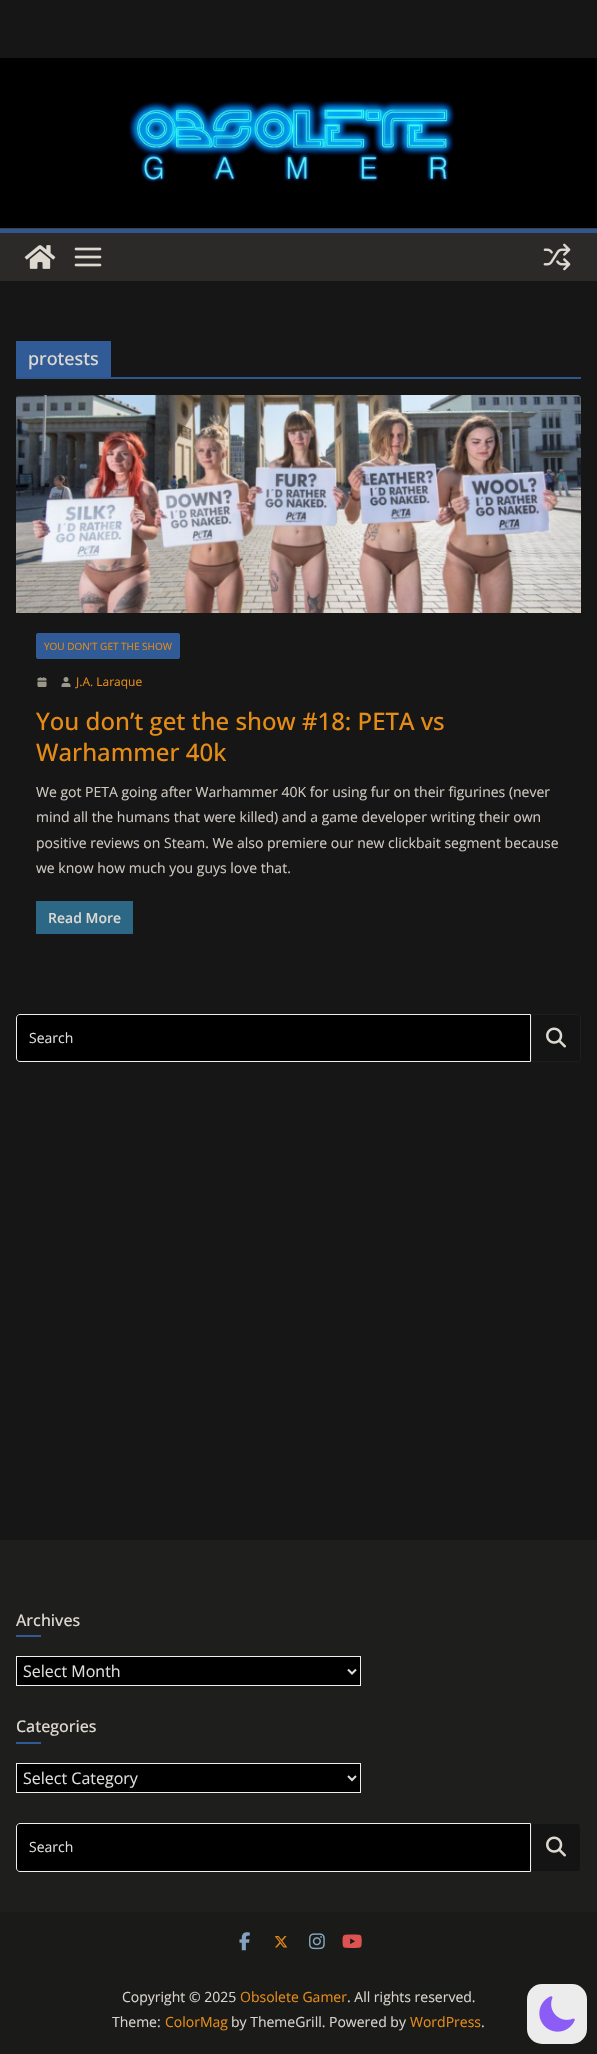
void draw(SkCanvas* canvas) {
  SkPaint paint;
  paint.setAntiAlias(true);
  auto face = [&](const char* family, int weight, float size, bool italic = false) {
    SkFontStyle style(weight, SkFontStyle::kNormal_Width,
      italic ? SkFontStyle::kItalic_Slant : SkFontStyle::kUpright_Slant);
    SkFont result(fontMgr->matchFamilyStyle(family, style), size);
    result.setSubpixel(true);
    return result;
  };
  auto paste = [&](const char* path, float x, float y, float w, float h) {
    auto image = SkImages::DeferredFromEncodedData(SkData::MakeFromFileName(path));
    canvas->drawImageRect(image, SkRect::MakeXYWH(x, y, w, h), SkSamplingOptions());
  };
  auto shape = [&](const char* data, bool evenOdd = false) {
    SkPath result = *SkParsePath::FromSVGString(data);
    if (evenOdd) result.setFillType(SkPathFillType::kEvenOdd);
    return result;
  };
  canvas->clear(0xff171616);
  paste("img/1.png", 0, 58, 597, 170);
  {
    const struct { float x, y, w, h; SkColor color; } items[] = {
      {0, 228, 597, 1, 0xff424140},
      {0, 233, 597, 48, 0xff2b2a29},
      {0, 229, 597, 4, 0xff2f578e},
    };
    for (auto [x, y, w, h, color] : items) {
      paint.setColor(color);
      canvas->drawRect(SkRect::MakeXYWH(x, y, w, h), paint);
    }
  }
  paste("img/2.png", 24, 245, 32, 24);
  paste("img/3.png", 74, 247, 28, 20);
  paste("img/4.png", 543, 243, 28, 28);
  canvas->drawRect(SkRect::MakeXYWH(16, 377, 565, 2), paint);
  paint.setColor(0xff315b96);
  canvas->drawRect(SkRect::MakeXYWH(16, 341, 95, 36), paint);
  paste("img/5.png", 16, 395, 565, 218);
  canvas->drawRoundRect(SkRect::MakeXYWH(36, 633, 144, 26), 2, 2, paint);
  paste("img/6.png", 37, 677, 10, 10);
  paste("img/7.png", 61, 677, 10, 10);
  canvas->drawRect(SkRect::MakeXYWH(36, 901, 97, 33), paint);
  paint.setColor(0xff2c6785);
  canvas->drawRoundRect(SkRect::MakeXYWH(36, 901, 97, 33), 2, 2, paint);
  paint.setColor(0xff000000);
  canvas->drawPath(shape("M20 1014.5H530.5V1061.5H20C18 1061.5 16.5 1060 16.5 1058V1018C16.5 1016 18 1014.5 20 1014.5Z"), paint);
  paint.setStroke(true);
  paint.setStrokeWidth(1);
  paint.setColor(0xfff0f0f0);
  canvas->drawPath(shape("M20 1014.5H530.5V1061.5H20C18 1061.5 16.5 1060 16.5 1058V1018C16.5 1016 18 1014.5 20 1014.5Z"), paint);
  paint.setStroke(false);
  paint.setColor(0xff141414);
  canvas->drawPath(shape("M531.5 1014.5H577C579 1014.5 580.5 1016 580.5 1018V1058C580.5 1060 579 1061.5 577 1061.5H531.5Z"), paint);
  paint.setStroke(true);
  paint.setColor(0xff1e1e1e);
  canvas->drawPath(shape("M531.5 1014.5H577C579 1014.5 580.5 1016 580.5 1018V1058C580.5 1060 579 1061.5 577 1061.5H531.5Z"), paint);
  paste("img/8.png", 546, 1027, 20, 21);
  paint.setStroke(false);
  paint.setColor(0xff1e1e1d);
  canvas->drawRect(SkRect::MakeXYWH(0, 1540, 597, 372), paint);
  paint.setColor(0xff315b96);
  canvas->drawRect(SkRect::MakeXYWH(16, 1635, 25, 2), paint);
  paint.setColor(0xff000000);
  canvas->drawRect(SkRect::MakeXYWH(16.5f, 1656.5f, 344, 29), paint);
  paint.setStroke(true);
  paint.setColor(0xfff0f0f0);
  canvas->drawRect(SkRect::MakeXYWH(16.5f, 1656.5f, 344, 29), paint);
  paint.setStrokeWidth(2);
  paint.setColor(0xffdfdedb);
  canvas->drawPath(shape("M348 1669.5L352 1673.5L356 1669.5"), paint);
  paint.setStroke(false);
  paint.setColor(0xff315b96);
  canvas->drawRect(SkRect::MakeXYWH(16, 1742, 25, 2), paint);
  paint.setColor(0xff000000);
  canvas->drawRect(SkRect::MakeXYWH(16.5f, 1763.5f, 344, 29), paint);
  paint.setStroke(true);
  paint.setStrokeWidth(1);
  paint.setColor(0xfff0f0f0);
  canvas->drawRect(SkRect::MakeXYWH(16.5f, 1763.5f, 344, 29), paint);
  paint.setStrokeWidth(2);
  paint.setColor(0xffdfdedb);
  canvas->drawPath(shape("M348 1776L352 1780L356 1776"), paint);
  paint.setStroke(false);
  paint.setColor(0xff000000);
  canvas->drawPath(shape("M20 1823.5H530.5V1871.5H20C18 1871.5 16.5 1870 16.5 1868V1827C16.5 1825 18 1823.5 20 1823.5Z"), paint);
  paint.setStroke(true);
  paint.setStrokeWidth(1);
  paint.setColor(0xfff0f0f0);
  canvas->drawPath(shape("M20 1823.5H530.5V1871.5H20C18 1871.5 16.5 1870 16.5 1868V1827C16.5 1825 18 1823.5 20 1823.5Z"), paint);
  paint.setStroke(false);
  paint.setColor(0xff141414);
  canvas->drawPath(shape("M531.5 1823.5H577C579 1823.5 580.5 1825 580.5 1827V1868C580.5 1870 579 1871.5 577 1871.5H531.5Z"), paint);
  paint.setStroke(true);
  paint.setColor(0xff1e1e1e);
  canvas->drawPath(shape("M531.5 1823.5H577C579 1823.5 580.5 1825 580.5 1827V1868C580.5 1870 579 1871.5 577 1871.5H531.5Z"), paint);
  paste("img/8.png", 546, 1836, 20, 21);
  paint.setStroke(false);
  paint.setColor(0xff1a1a19);
  canvas->drawRect(SkRect::MakeXYWH(0, 1912, 597, 142), paint);
  paste("img/9.png", 239, 1932, 11, 19);
  paste("img/10.png", 274, 1936, 14, 12);
  paste("img/11.png", 309, 1933, 16, 17);
  paste("img/12.png", 342, 1934, 20, 14);
  paint.setColor(0xffececec);
  canvas->drawRoundRect(SkRect::MakeXYWH(527, 1984, 60, 60), 15, 15, paint);
  paste("img/13.png", 539, 1996, 36, 36);
  auto f0 = face("Open Sans", 500, 18);
  paint.setColor(0xffddd9d1);
  canvas->drawString("protests", 28, 365, f0, paint);
  auto f1 = face("Open Sans", 400, 10);
  paint.setColor(0xffe58c17);
  canvas->drawString("YOU DON'T GET THE SHOW", 44, 650, f1, paint);
  auto f2 = face("Open Sans", 400, 12);
  canvas->drawString("J.A. Laraque", 76, 686, f2, paint);
  auto f3 = face("Open Sans", 500, 24);
  canvas->drawString("You don’t get the show #18: PETA vs", 36, 730, f3, paint);
  canvas->drawString("Warhammer 40k", 36, 761, f3, paint);
  auto f4 = face("Open Sans", 400, 14);
  paint.setColor(0xffcdc8c0);
  {
    const struct { const char* s; float x, y; } items[] = {
      {"We got PETA going after Warhammer 40K for using fur on their figurines (never", 36, 797},
      {"mind all the humans that were killed) and a game developer writing their own", 36, 822},
      {"positive reviews on Steam. We also premiere our new clickbait segment because", 36, 848},
      {"we know how much you guys love that.", 36, 873},
    };
    for (auto [s, x, y] : items) {
      canvas->drawString(s, x, y, f4, paint);
    }
  }
  auto f5 = face("Open Sans", 600, 14);
  paint.setColor(0xffddd9d1);
  canvas->drawString("Read More", 48, 923, f5, paint);
  paint.setColor(0xffdfdedb);
  canvas->drawString("Search", 29, 1043, f4, paint);
  auto f6 = face("Open Sans", 500, 16);
  paint.setColor(0xffddd9d1);
  canvas->drawString("Archives", 16, 1626, f6, paint);
  auto f7 = face("Open Sans", 400, 16);
  paint.setColor(0xffdfdedb);
  canvas->drawString("Select Month", 23, 1677, f7, paint);
  paint.setColor(0xffddd9d1);
  canvas->drawString("Categories", 16, 1732, f6, paint);
  paint.setColor(0xffdfdedb);
  canvas->drawString("Select Category", 23, 1784, f7, paint);
  canvas->drawString("Search", 29, 1852, f4, paint);
  paint.setColor(0xffd7d3cb);
  canvas->drawString("Copyright © 2025", 122, 2002, f4, paint);
  paint.setColor(0xffe58c17);
  canvas->drawString("Obsolete Gamer", 240, 2002, f4, paint);
  paint.setColor(0xffd7d3cb);
  canvas->drawString(". All rights reserved.", 347, 2002, f4, paint);
  canvas->drawString("Theme:", 112, 2027, f4, paint);
  paint.setColor(0xffe58c17);
  canvas->drawString("ColorMag", 165, 2027, f4, paint);
  paint.setColor(0xffd7d3cb);
  canvas->drawString("by ThemeGrill. Powered by", 231, 2027, f4, paint);
  paint.setColor(0xffe58c17);
  canvas->drawString("WordPress", 410, 2027, f4, paint);
  paint.setColor(0xffd7d3cb);
  canvas->drawString(".", 481, 2027, f4, paint);
}
